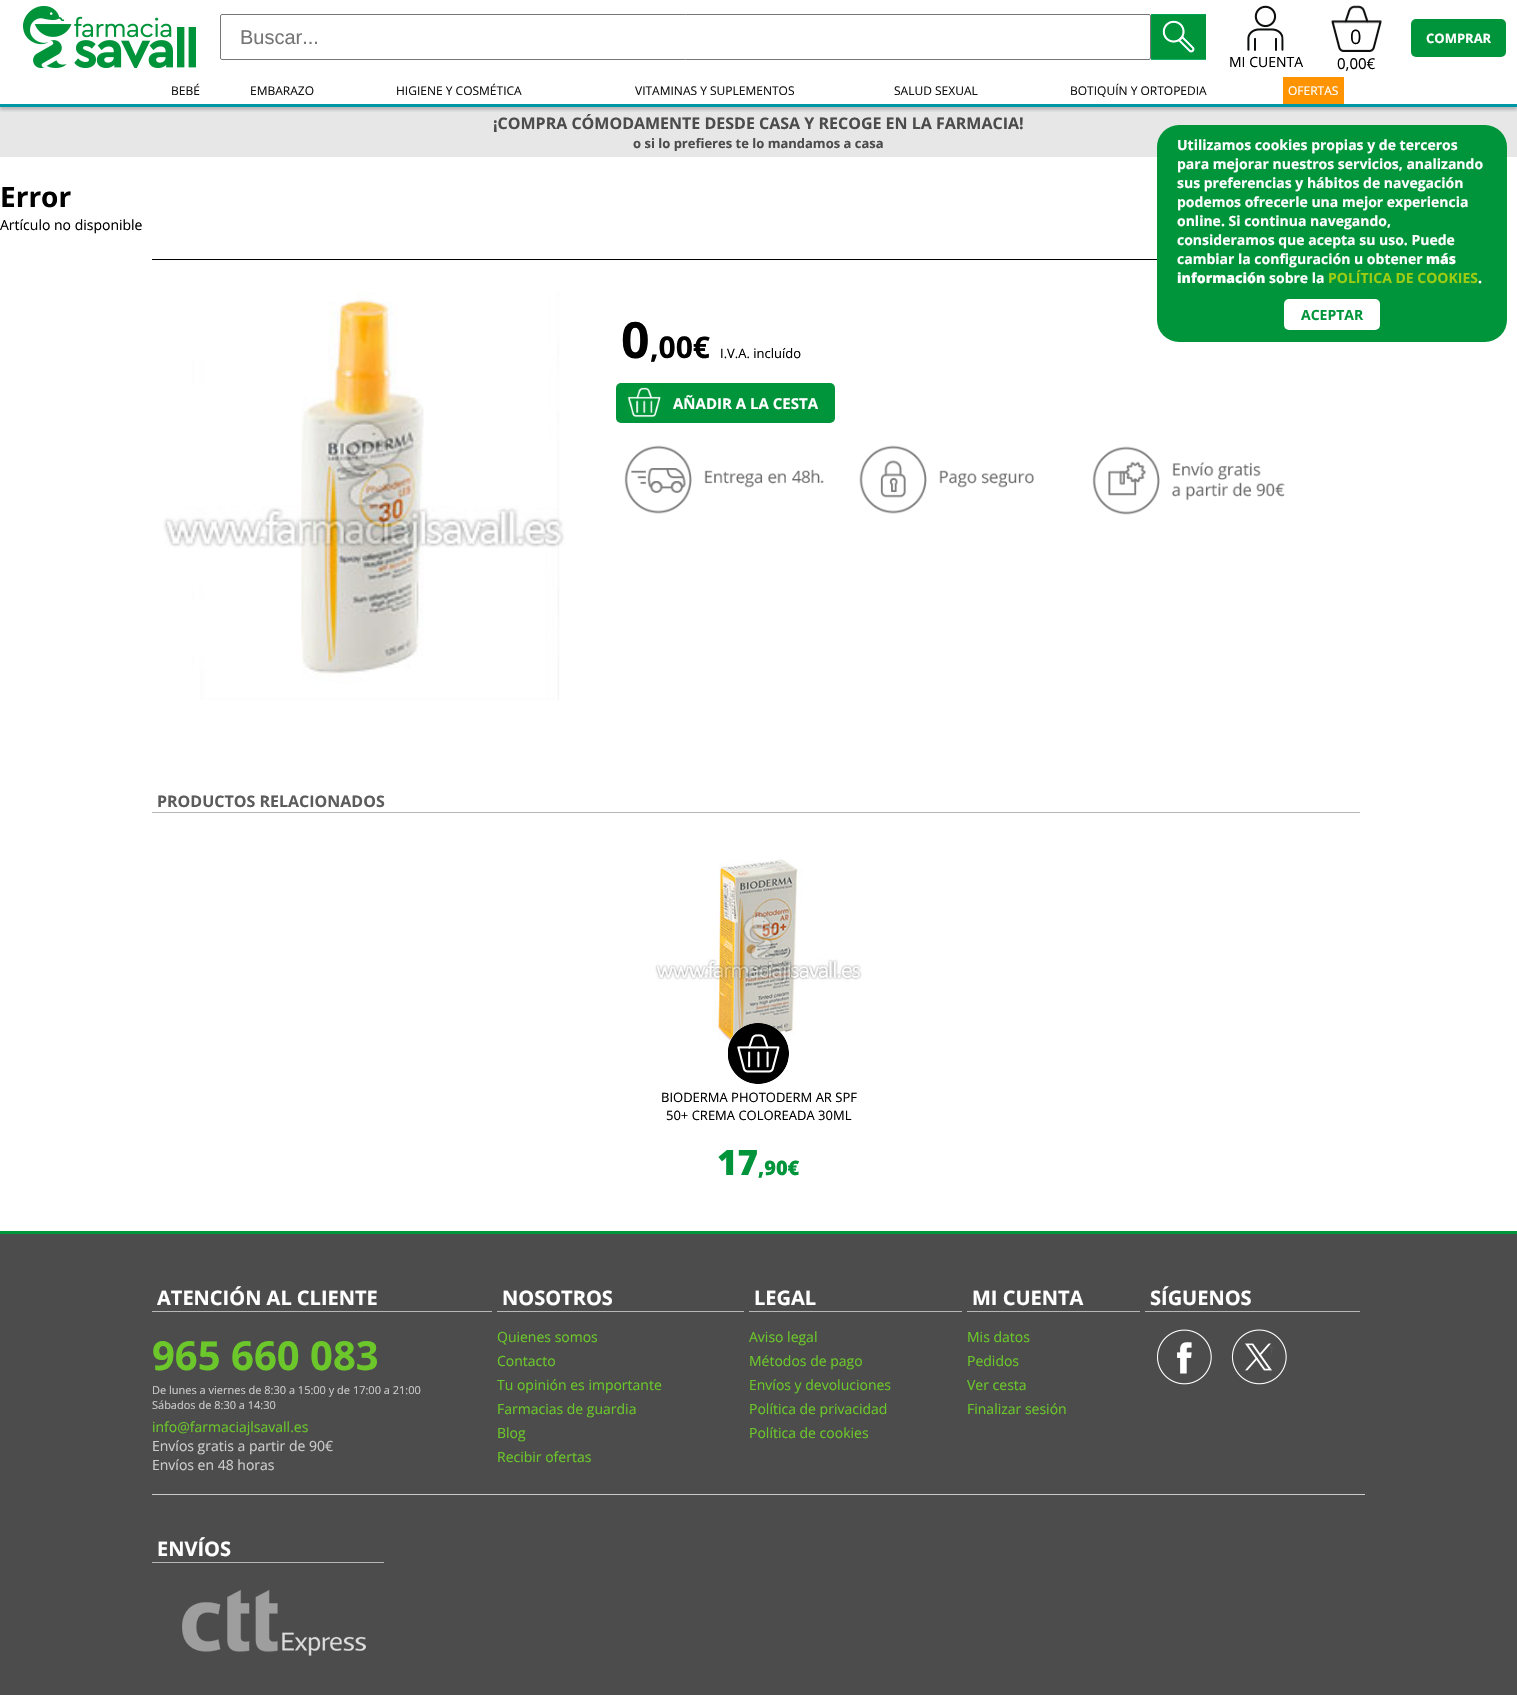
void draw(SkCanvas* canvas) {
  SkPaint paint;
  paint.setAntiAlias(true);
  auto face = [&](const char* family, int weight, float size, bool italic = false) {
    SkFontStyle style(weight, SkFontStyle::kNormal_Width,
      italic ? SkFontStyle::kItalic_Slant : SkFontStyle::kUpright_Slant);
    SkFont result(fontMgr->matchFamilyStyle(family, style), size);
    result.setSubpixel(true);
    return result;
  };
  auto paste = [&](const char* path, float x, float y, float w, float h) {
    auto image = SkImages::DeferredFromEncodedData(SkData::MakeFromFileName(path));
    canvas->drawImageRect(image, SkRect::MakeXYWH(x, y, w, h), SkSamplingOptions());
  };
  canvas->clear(0xffffffff);
  paint.setColor(0xffe7e7e7);
  canvas->drawRect(SkRect::MakeXYWH(0, 107, 1517, 50), paint);
  canvas->save();
  canvas->clipRect(SkRect::MakeXYWH(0, 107, 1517, 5));
  paint.setColor(0x33000000);
  paint.setMaskFilter(SkMaskFilter::MakeBlur(kNormal_SkBlurStyle, 1.5f));
  canvas->drawRect(SkRect::MakeXYWH(0, 3, 1517, 107), paint);
  paint.setMaskFilter(nullptr);
  canvas->restore();
  paint.setColor(0xff0097a6);
  canvas->drawRect(SkRect::MakeXYWH(0, 104, 1517, 3), paint);
  paste("img/1.png", 23, 6, 173, 62);
  paint.setStroke(true);
  paint.setStrokeWidth(1);
  paint.setColor(0xff767676);
  canvas->drawRoundRect(SkRect::MakeXYWH(220.5f, 14.5f, 930, 45), 1.5f, 1.5f, paint);
  paste("img/2.png", 1151, 14, 55, 46);
  paste("img/3.png", 1331, 5, 51, 47);
  paint.setStroke(false);
  paint.setColor(0xff00953a);
  canvas->drawRoundRect(SkRect::MakeXYWH(1411, 19, 95, 38), 5, 5, paint);
  paste("img/4.png", 1247, 5, 37, 46);
  paint.setColor(0xffff9400);
  canvas->drawRect(SkRect::MakeXYWH(1283, 77, 61, 27), paint);
  paint.setColor(0xff000000);
  canvas->drawRect(SkRect::MakeXYWH(152, 259, 1005, 1), paint);
  paste("img/5.png", 163, 292, 402, 408);
  paint.setColor(0xff00953a);
  canvas->drawRoundRect(SkRect::MakeXYWH(616, 383, 219, 40), 5, 5, paint);
  paste("img/6.png", 627, 387, 34, 31);
  paste("img/7.png", 624, 445, 200, 69);
  paste("img/8.png", 859, 445, 175, 69);
  paste("img/9.png", 1092, 446, 193, 69);
  paint.setColor(0xffb7b7b7);
  canvas->drawRect(SkRect::MakeXYWH(152, 812, 1208, 1), paint);
  paste("img/10.png", 655, 859, 207, 184);
  paste("img/11.png", 728, 1023, 61, 61);
  paint.setColor(0xff00953a);
  canvas->drawRoundRect(SkRect::MakeXYWH(1157, 125, 350, 217), 22, 22, paint);
  paint.setColor(0xffffffff);
  canvas->drawRoundRect(SkRect::MakeXYWH(1284, 299, 96, 31), 5, 5, paint);
  {
    const struct { float x, y, w, h; SkColor color; } items[] = {
      {0, 1234, 1517, 461, 0xff4c4c4c},
      {0, 1231, 1517, 3, 0xff00953a},
      {152, 1311, 340, 1, 0xffb7b7b7},
      {497, 1311, 247, 1, 0xffb7b7b7},
      {749, 1311, 213, 1, 0xffb7b7b7},
      {967, 1311, 173, 1, 0xffb7b7b7},
      {1145, 1311, 215, 1, 0xffb7b7b7},
    };
    for (auto [x, y, w, h, color] : items) {
      paint.setColor(color);
      canvas->drawRect(SkRect::MakeXYWH(x, y, w, h), paint);
    }
  }
  paste("img/12.png", 1157, 1329, 55, 56);
  paste("img/13.png", 1231, 1329, 56, 56);
  paint.setColor(0xffcccccc);
  canvas->drawRect(SkRect::MakeXYWH(152, 1494, 1213, 1), paint);
  paint.setColor(0xffb7b7b7);
  canvas->drawRect(SkRect::MakeXYWH(152, 1562, 232, 1), paint);
  paste("img/14.png", 182, 1589, 184, 67);
  auto f0 = face("Liberation Sans", 400, 20);
  paint.setColor(0xff757575);
  canvas->drawString("Buscar...", 240, 44, f0, paint);
  auto f1 = face("Open Sans", 400, 20);
  paint.setColor(0xff000000);
  canvas->drawString("0", 1350, 44, f1, paint);
  auto f2 = face("Open Sans", 400, 15);
  canvas->drawString("0,00€", 1337, 69, f2, paint);
  auto f3 = face("Open Sans", 700, 13);
  paint.setColor(0xffffffff);
  canvas->drawString("COMPRAR", 1426, 43, f3, paint);
  auto f4 = face("Open Sans", 400, 14);
  paint.setColor(0xff000000);
  canvas->drawString("MI CUENTA", 1229, 67, f4, paint);
  auto f5 = face("Open Sans", 400, 12);
  paint.setColor(0xff111111);
  {
    const struct { const char* s; float x, y; } items[] = {
      {"BEBÉ", 171, 95},
      {"EMBARAZO", 250, 95},
      {"HIGIENE Y COSMÉTICA", 396, 95},
      {"VITAMINAS Y SUPLEMENTOS", 635, 95},
      {"SALUD SEXUAL", 894, 95},
      {"BOTIQUÍN Y ORTOPEDIA", 1070, 95},
    };
    for (auto [s, x, y] : items) {
      canvas->drawString(s, x, y, f5, paint);
    }
  }
  paint.setColor(0xffffffff);
  canvas->drawString("OFERTAS", 1288, 95, f5, paint);
  auto f6 = face("Open Sans", 700, 16);
  paint.setColor(0xff4c4c4c);
  canvas->drawString("¡COMPRA CÓMODAMENTE DESDE CASA Y RECOGE EN LA FARMACIA!", 493, 129, f6, paint);
  canvas->drawString("o si lo prefieres te lo mandamos a casa", 633, 148, f3, paint);
  auto f7 = face("Open Sans", 700, 28);
  paint.setColor(0xff000000);
  canvas->drawString("Error", 0, 207, f7, paint);
  canvas->drawString("Artículo no disponible", 0, 230, f4, paint);
  auto f8 = face("Open Sans", 700, 50);
  canvas->drawString("0", 621, 358, f8, paint);
  auto f9 = face("Open Sans", 700, 30);
  canvas->drawString(",00€", 650, 358, f9, paint);
  auto f10 = face("Open Sans", 400, 13);
  canvas->drawString("I.V.A. incluído", 720, 358, f10, paint);
  auto f11 = face("Open Sans", 700, 15);
  paint.setColor(0xffffffff);
  canvas->drawString("AÑADIR A LA CESTA", 673, 409, f11, paint);
  paint.setColor(0xff5c5c5c);
  canvas->drawString("PRODUCTOS RELACIONADOS", 157, 807, f6, paint);
  paint.setColor(0xff000000);
  canvas->drawString("BIODERMA PHOTODERM AR SPF", 661, 1102, f10, paint);
  canvas->drawString("50+ CREMA COLOREADA 30ML", 666, 1120, f10, paint);
  auto f12 = face("Open Sans", 800, 35);
  paint.setColor(0xff00953a);
  canvas->drawString("17", 717, 1175, f12, paint);
  auto f13 = face("Open Sans", 800, 20);
  canvas->drawString(",90€", 758, 1175, f13, paint);
  auto f14 = face("Open Sans", 700, 14);
  paint.setColor(0xffffffff);
  {
    const struct { const char* s; float x, y; } items[] = {
      {"Utilizamos cookies propias y de terceros", 1177, 150},
      {"para mejorar nuestros servicios, analizando", 1177, 169},
      {"sus preferencias y hábitos de navegación", 1177, 188},
      {"podemos ofrecerle una mejor experiencia", 1177, 207},
      {"online. Si continua navegando,", 1177, 226},
      {"consideramos que acepta su uso. Puede", 1177, 245},
      {"cambiar la configuración u obtener", 1177, 264},
    };
    for (auto [s, x, y] : items) {
      canvas->drawString(s, x, y, f14, paint);
    }
  }
  auto f15 = face("Open Sans", 800, 14);
  canvas->drawString("más", 1426, 264, f15, paint);
  canvas->drawString("información", 1177, 283, f15, paint);
  canvas->drawString("sobre la", 1269, 283, f14, paint);
  paint.setColor(0xff9dcc13);
  canvas->drawString("POLÍTICA DE COOKIES", 1328, 283, f14, paint);
  paint.setColor(0xffffffff);
  canvas->drawString(".", 1478, 283, f14, paint);
  paint.setColor(0xff00953a);
  canvas->drawString("ACEPTAR", 1301, 320, f14, paint);
  auto f16 = face("Open Sans", 700, 20);
  paint.setColor(0xffffffff);
  canvas->drawString("ATENCIÓN AL CLIENTE", 157, 1305, f16, paint);
  auto f17 = face("Open Sans", 700, 40);
  paint.setColor(0xff6bc72a);
  canvas->drawString("965 660 083", 152, 1370, f17, paint);
  auto f18 = face("Open Sans", 400, 11);
  paint.setColor(0xffcccccc);
  canvas->drawString("De lunes a viernes de 8:30 a 15:00 y de 17:00 a 21:00", 152, 1394, f18, paint);
  canvas->drawString("Sábados de 8:30 a 14:30", 152, 1409, f18, paint);
  paint.setColor(0xff6bc72a);
  canvas->drawString("info@farmaciajlsavall.es", 152, 1432, f4, paint);
  paint.setColor(0xffcccccc);
  canvas->drawString("Envíos gratis a partir de 90€", 152, 1451, f4, paint);
  canvas->drawString("Envíos en 48 horas", 152, 1470, f4, paint);
  paint.setColor(0xffffffff);
  canvas->drawString("NOSOTROS", 502, 1305, f16, paint);
  paint.setColor(0xff6bc72a);
  {
    const struct { const char* s; float x, y; } items[] = {
      {"Quienes somos", 497, 1342},
      {"Contacto", 497, 1366},
      {"Tu opinión es importante", 497, 1390},
      {"Farmacias de guardia", 497, 1414},
      {"Blog", 497, 1438},
      {"Recibir ofertas", 497, 1462},
    };
    for (auto [s, x, y] : items) {
      canvas->drawString(s, x, y, f4, paint);
    }
  }
  paint.setColor(0xffffffff);
  canvas->drawString("LEGAL", 754, 1305, f16, paint);
  paint.setColor(0xff6bc72a);
  {
    const struct { const char* s; float x, y; } items[] = {
      {"Aviso legal", 749, 1342},
      {"Métodos de pago", 749, 1366},
      {"Envíos y devoluciones", 749, 1390},
      {"Política de privacidad", 749, 1414},
      {"Política de cookies", 749, 1438},
    };
    for (auto [s, x, y] : items) {
      canvas->drawString(s, x, y, f4, paint);
    }
  }
  paint.setColor(0xffffffff);
  canvas->drawString("MI CUENTA", 972, 1305, f16, paint);
  paint.setColor(0xff6bc72a);
  {
    const struct { const char* s; float x, y; } items[] = {
      {"Mis datos", 967, 1342},
      {"Pedidos", 967, 1366},
      {"Ver cesta", 967, 1390},
      {"Finalizar sesión", 967, 1414},
    };
    for (auto [s, x, y] : items) {
      canvas->drawString(s, x, y, f4, paint);
    }
  }
  paint.setColor(0xffffffff);
  canvas->drawString("SÍGUENOS", 1150, 1305, f16, paint);
  canvas->drawString("ENVÍOS", 157, 1556, f16, paint);
}
